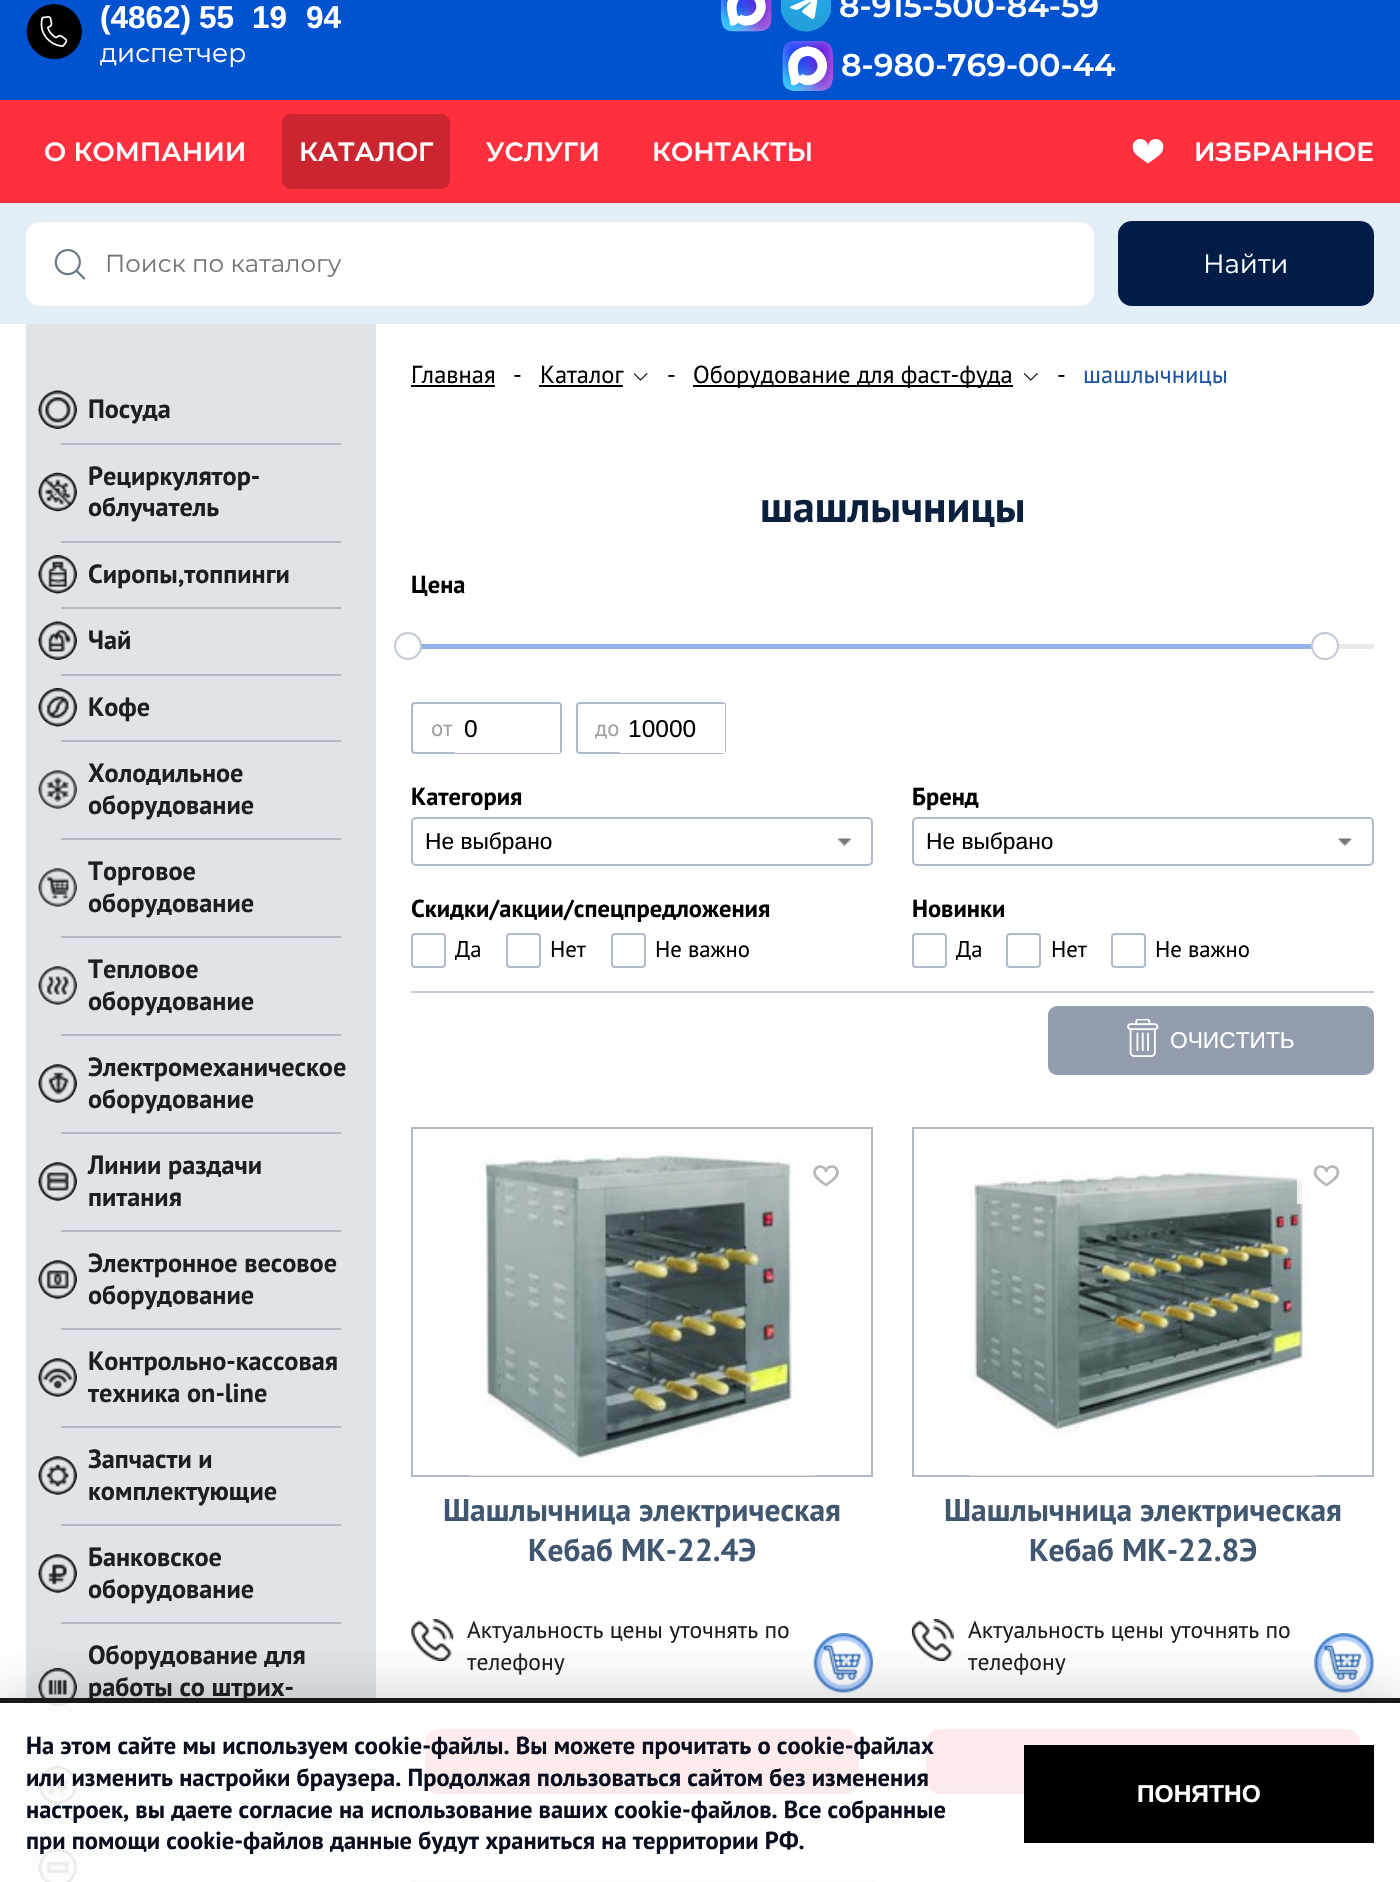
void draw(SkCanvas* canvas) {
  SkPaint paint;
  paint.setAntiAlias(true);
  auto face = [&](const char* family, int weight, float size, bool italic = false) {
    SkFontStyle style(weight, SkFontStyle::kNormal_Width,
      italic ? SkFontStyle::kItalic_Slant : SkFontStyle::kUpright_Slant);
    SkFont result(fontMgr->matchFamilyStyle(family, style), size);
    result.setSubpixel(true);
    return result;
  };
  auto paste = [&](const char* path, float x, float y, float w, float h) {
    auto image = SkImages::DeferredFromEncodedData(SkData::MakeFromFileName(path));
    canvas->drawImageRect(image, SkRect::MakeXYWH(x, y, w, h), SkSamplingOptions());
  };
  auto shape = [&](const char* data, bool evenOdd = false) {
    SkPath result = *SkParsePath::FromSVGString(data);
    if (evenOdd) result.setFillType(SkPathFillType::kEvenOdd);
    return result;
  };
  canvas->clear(0xffffffff);
  paint.setColor(0xff0052cf);
  canvas->drawRect(SkRect::MakeXYWH(0, 0, 1400, 100), paint);
  paste("img/1.png", 26, 4, 56, 56);
  paste("img/2.png", 721, 0, 51, 32);
  paste("img/3.png", 781, 0, 50, 32);
  paste("img/4.png", 782, 41, 51, 50);
  paint.setColor(0xffff303e);
  canvas->drawRect(SkRect::MakeXYWH(0, 100, 1400, 103), paint);
  paint.setColor(0xffcb252f);
  canvas->drawRoundRect(SkRect::MakeXYWH(282, 114, 168, 75), 9, 9, paint);
  paste("img/5.png", 1132, 138, 32, 26);
  paint.setColor(0xffe4eef6);
  canvas->drawRect(SkRect::MakeXYWH(0, 203, 1400, 121), paint);
  paint.setColor(0xffffffff);
  canvas->drawRoundRect(SkRect::MakeXYWH(26, 222, 1068, 84), 14, 14, paint);
  paste("img/6.png", 54, 249, 32, 31);
  paint.setColor(0xff001c47);
  canvas->drawRoundRect(SkRect::MakeXYWH(1118, 221, 256, 85), 14, 14, paint);
  paint.setColor(0xffe0e3e8);
  canvas->drawRect(SkRect::MakeXYWH(26, 324, 350, 1558), paint);
  paste("img/7.png", 38, 390, 39, 39);
  paint.setColor(0xffb0b8c1);
  canvas->drawRect(SkRect::MakeXYWH(61, 443, 280, 2), paint);
  paste("img/8.png", 38, 472, 39, 40);
  canvas->drawRect(SkRect::MakeXYWH(61, 541, 280, 2), paint);
  paste("img/9.png", 38, 555, 40, 39);
  canvas->drawRect(SkRect::MakeXYWH(61, 607, 280, 2), paint);
  paste("img/10.png", 38, 621, 39, 39);
  canvas->drawRect(SkRect::MakeXYWH(61, 674, 280, 2), paint);
  paste("img/11.png", 38, 688, 40, 39);
  canvas->drawRect(SkRect::MakeXYWH(61, 740, 280, 2), paint);
  paste("img/12.png", 38, 770, 39, 39);
  canvas->drawRect(SkRect::MakeXYWH(61, 838, 280, 2), paint);
  paste("img/13.png", 38, 868, 39, 39);
  canvas->drawRect(SkRect::MakeXYWH(61, 936, 280, 2), paint);
  paste("img/14.png", 38, 966, 39, 39);
  canvas->drawRect(SkRect::MakeXYWH(61, 1034, 280, 2), paint);
  paste("img/15.png", 38, 1064, 39, 39);
  canvas->drawRect(SkRect::MakeXYWH(61, 1132, 280, 2), paint);
  paste("img/16.png", 38, 1162, 39, 39);
  canvas->drawRect(SkRect::MakeXYWH(61, 1230, 280, 2), paint);
  paste("img/17.png", 38, 1260, 39, 39);
  canvas->drawRect(SkRect::MakeXYWH(61, 1328, 280, 2), paint);
  paste("img/18.png", 38, 1358, 39, 39);
  canvas->drawRect(SkRect::MakeXYWH(61, 1426, 280, 2), paint);
  paste("img/19.png", 38, 1456, 39, 39);
  canvas->drawRect(SkRect::MakeXYWH(61, 1524, 280, 2), paint);
  paste("img/20.png", 38, 1554, 39, 39);
  canvas->drawRect(SkRect::MakeXYWH(61, 1622, 280, 2), paint);
  paste("img/21.png", 38, 1668, 40, 39);
  canvas->drawRect(SkRect::MakeXYWH(61, 1752, 280, 2), paint);
  paste("img/22.png", 38, 1766, 40, 39);
  canvas->drawRect(SkRect::MakeXYWH(61, 1818, 280, 2), paint);
  paste("img/23.png", 38, 1848, 39, 34);
  paint.setColor(0xff000000);
  canvas->drawRect(SkRect::MakeXYWH(411, 385, 84, 2), paint);
  canvas->drawRect(SkRect::MakeXYWH(539, 385, 84, 2), paint);
  paste("img/24.png", 634, 373, 14, 8);
  canvas->drawRect(SkRect::MakeXYWH(693, 385, 320, 2), paint);
  paste("img/25.png", 1024, 373, 14, 8);
  paint.setColor(0xffe9e9e9);
  canvas->drawRoundRect(SkRect::MakeXYWH(411, 644, 963, 5), 1, 1, paint);
  paint.setColor(0xff91b3e5);
  canvas->drawRect(SkRect::MakeXYWH(421, 644, 891, 5), paint);
  paint.setColor(0xffffffff);
  canvas->drawCircle(408, 646, 13, paint);
  paint.setStroke(true);
  paint.setStrokeWidth(2);
  paint.setColor(0xffc2c9d4);
  canvas->drawCircle(408, 646, 13, paint);
  paint.setStroke(false);
  paint.setColor(0xffffffff);
  canvas->drawCircle(1325, 646, 13, paint);
  paint.setStroke(true);
  paint.setColor(0xffc2c9d4);
  canvas->drawCircle(1325, 646, 13, paint);
  paint.setColor(0xffb1bac8);
  canvas->drawRoundRect(SkRect::MakeXYWH(412, 703, 149, 50), 3, 3, paint);
  paint.setStroke(false);
  paint.setColor(0xffffffff);
  canvas->drawRect(SkRect::MakeXYWH(455, 704, 105, 49), paint);
  paint.setStroke(true);
  paint.setColor(0xffb1bac8);
  canvas->drawRoundRect(SkRect::MakeXYWH(577, 703, 148, 50), 3, 3, paint);
  paint.setStroke(false);
  paint.setColor(0xffffffff);
  canvas->drawRect(SkRect::MakeXYWH(620, 704, 105, 49), paint);
  paint.setStroke(true);
  paint.setColor(0xffb1bac8);
  canvas->drawRoundRect(SkRect::MakeXYWH(412, 818, 460, 47), 4, 4, paint);
  paste("img/26.png", 837, 838, 14, 8);
  canvas->drawRoundRect(SkRect::MakeXYWH(913, 818, 460, 47), 4, 4, paint);
  paste("img/27.png", 1338, 838, 14, 8);
  canvas->drawRoundRect(SkRect::MakeXYWH(412, 934, 33, 33), 3, 3, paint);
  canvas->drawRoundRect(SkRect::MakeXYWH(507, 934, 33, 33), 3, 3, paint);
  canvas->drawRoundRect(SkRect::MakeXYWH(612, 934, 33, 33), 3, 3, paint);
  canvas->drawRoundRect(SkRect::MakeXYWH(913, 934, 33, 33), 3, 3, paint);
  canvas->drawRoundRect(SkRect::MakeXYWH(1007, 934, 33, 33), 3, 3, paint);
  canvas->drawRoundRect(SkRect::MakeXYWH(1112, 934, 33, 33), 3, 3, paint);
  paint.setStroke(false);
  paint.setColor(0xffc2cddc);
  canvas->drawRect(SkRect::MakeXYWH(411, 991, 963, 2), paint);
  paint.setColor(0xff939dae);
  canvas->drawRoundRect(SkRect::MakeXYWH(1048, 1006, 326, 69), 9, 9, paint);
  paste("img/28.png", 1127, 1019, 32, 38);
  paint.setStroke(true);
  paint.setColor(0xffb0b8c1);
  canvas->drawRect(SkRect::MakeXYWH(412, 1128, 460, 348), paint);
  paste("img/29.png", 469, 1152, 347, 324);
  paint.setStrokeWidth(2.6f);
  paint.setColor(0xffb8b8b8);
  canvas->drawPath(shape("M826 1172C826 1166 817.5 1164.5 815 1170C812 1176.5 821.5 1182 826 1185C830.5 1182 840 1176.5 837 1170C834.5 1164.5 826 1166 826 1172"), paint);
  paste("img/30.png", 411, 1619, 43, 42);
  paste("img/31.png", 813, 1633, 61, 60);
  paint.setStroke(false);
  {
    const SkColor colors[] = {0xffd92e37, 0xffff333f};
    const float stops[] = {0, 1};
    const SkPoint ends[] = {{642, 1794}, {642, 1729}};
    paint.setShader(SkGradientShader::MakeLinear(ends, colors, stops, 2, SkTileMode::kClamp));
    paint.setAlpha(255);
  }
  canvas->drawRoundRect(SkRect::MakeXYWH(425, 1729, 434, 65), 14, 14, paint);
  paint.setStroke(true);
  paint.setStrokeWidth(2);
  paint.setShader(nullptr);
  paint.setColor(0xffb0b8c1);
  canvas->drawRect(SkRect::MakeXYWH(913, 1128, 460, 348), paint);
  paste("img/32.png", 969, 1170, 347, 306);
  paint.setStroke(false);
  paint.setColor(0xccffffff);
  canvas->drawRect(SkRect::MakeXYWH(1297, 1173, 9, 31), paint);
  paint.setStroke(true);
  paint.setStrokeWidth(2.6f);
  paint.setColor(0xffb8b8b8);
  canvas->drawPath(shape("M1326.5 1172C1326.5 1166 1318 1164.5 1315.5 1170C1312.5 1176.5 1322 1182 1326.5 1185C1331 1182 1340.5 1176.5 1337.5 1170C1335 1164.5 1326.5 1166 1326.5 1172"), paint);
  paste("img/33.png", 911, 1619, 43, 42);
  paste("img/34.png", 1314, 1633, 60, 60);
  paint.setStroke(false);
  {
    const SkColor colors[] = {0xffd92e37, 0xffff333f};
    const float stops[] = {0, 1};
    const SkPoint ends[] = {{1143, 1794}, {1143, 1729}};
    paint.setShader(SkGradientShader::MakeLinear(ends, colors, stops, 2, SkTileMode::kClamp));
    paint.setAlpha(255);
  }
  canvas->drawRoundRect(SkRect::MakeXYWH(926, 1729, 434, 65), 14, 14, paint);
  paint.setStroke(true);
  paint.setStrokeWidth(2);
  paint.setShader(nullptr);
  paint.setColor(0xffb0b8c1);
  canvas->drawRect(SkRect::MakeXYWH(412, 1882, 460, 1), paint);
  canvas->save();
  canvas->clipRect(SkRect::MakeXYWH(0, 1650, 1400, 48));
  paint.setStroke(false);
  paint.setColor(0x61636363);
  paint.setMaskFilter(SkMaskFilter::MakeBlur(kNormal_SkBlurStyle, 33));
  canvas->drawRect(SkRect::MakeXYWH(0, 1703, 1400, 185), paint);
  paint.setMaskFilter(nullptr);
  canvas->restore();
  paint.setColor(0xe6ffffff);
  canvas->drawRect(SkRect::MakeXYWH(26, 1703, 1334, 179), paint);
  paint.setColor(0xff000000);
  canvas->drawRect(SkRect::MakeXYWH(1024, 1745, 350, 98), paint);
  auto f0 = face("Liberation Sans", 700, 31.5f);
  paint.setColor(0xffffffff);
  canvas->drawString("(4862)", 100, 28, f0, paint);
  canvas->drawString("55", 199, 28, f0, paint);
  auto f1 = face("Montserrat", 600, 31.5f);
  canvas->drawString("‑", 234, 28, f1, paint);
  canvas->drawString("19", 252, 28, f0, paint);
  canvas->drawString("‑", 287, 28, f1, paint);
  canvas->drawString("94", 306, 28, f0, paint);
  auto f2 = face("Montserrat", 400, 26.25f);
  canvas->drawString("диспетчер", 100, 62, f2, paint);
  canvas->drawString("8-915-500-84-59", 839, 17, f1, paint);
  canvas->drawString("8-980-769-00-44", 841, 76, f1, paint);
  auto f3 = face("Montserrat", 600, 26.25f);
  {
    const struct { const char* s; float x, y; } items[] = {
      {"О КОМПАНИИ", 44, 161},
      {"КАТАЛОГ", 299, 161},
      {"УСЛУГИ", 486, 161},
      {"КОНТАКТЫ", 652, 161},
      {"ИЗБРАННОЕ", 1194, 161},
    };
    for (auto [s, x, y] : items) {
      canvas->drawString(s, x, y, f3, paint);
    }
  }
  auto f4 = face("Montserrat", 400, 24.5f);
  paint.setColor(0xff757575);
  canvas->drawString("Поиск по каталогу", 105, 272, f4, paint);
  paint.setColor(0xffffffff);
  canvas->drawString("Найти", 1203, 273, f2, paint);
  auto f5 = face("PT Sans", 700, 26.25f);
  paint.setColor(0xff1c1e20);
  {
    const struct { const char* s; float x, y; } items[] = {
      {"Посуда", 88, 418},
      {"Рециркулятор-", 88, 485},
      {"облучатель", 88, 516},
      {"Сиропы,топпинги", 88, 583},
      {"Чай", 88, 649},
      {"Кофе", 88, 716},
      {"Холодильное", 88, 782},
      {"оборудование", 88, 814},
      {"Торговое", 88, 880},
      {"оборудование", 88, 912},
      {"Тепловое", 88, 978},
      {"оборудование", 88, 1010},
      {"Электромеханическое", 88, 1076},
      {"оборудование", 88, 1108},
      {"Линии раздачи", 88, 1174},
      {"питания", 88, 1206},
      {"Электронное весовое", 88, 1272},
      {"оборудование", 88, 1304},
      {"Контрольно-кассовая", 88, 1370},
      {"техника on-line", 88, 1402},
      {"Запчасти и", 88, 1468},
      {"комплектующие", 88, 1500},
      {"Банковское", 88, 1566},
      {"оборудование", 88, 1598},
      {"Оборудование для", 88, 1664},
      {"работы со штрих-", 88, 1696},
    };
    for (auto [s, x, y] : items) {
      canvas->drawString(s, x, y, f5, paint);
    }
  }
  auto f6 = face("PT Sans", 400, 24.5f);
  paint.setColor(0xff000000);
  {
    const struct { const char* s; float x, y; } items[] = {
      {"Главная", 411, 383},
      {"-", 513, 383},
      {"Каталог", 540, 383},
      {"-", 667, 383},
      {"Оборудование для фаст-фуда", 693, 383},
      {"-", 1057, 383},
    };
    for (auto [s, x, y] : items) {
      canvas->drawString(s, x, y, f6, paint);
    }
  }
  paint.setColor(0xff2055a3);
  canvas->drawString("шашлычницы", 1083, 383, f6, paint);
  auto f7 = face("PT Sans", 700, 43.75f);
  paint.setColor(0xff0b203f);
  canvas->drawString("шашлычницы", 760, 522, f7, paint);
  auto f8 = face("PT Sans", 700, 24.5f);
  paint.setColor(0xff000000);
  canvas->drawString("Цена", 411, 593, f8, paint);
  auto f9 = face("PT Sans", 400, 22.75f);
  paint.setColor(0xff9fa0a2);
  canvas->drawString("от", 431, 736, f9, paint);
  auto f10 = face("Liberation Sans", 400, 24.5f);
  paint.setColor(0xff000000);
  canvas->drawString("0", 464, 737, f10, paint);
  paint.setColor(0xff9fa0a2);
  canvas->drawString("до", 595, 736, f9, paint);
  paint.setColor(0xff000000);
  canvas->drawString("10000", 628, 737, f10, paint);
  canvas->drawString("Категория", 411, 805, f8, paint);
  auto f11 = face("Liberation Sans", 400, 22.75f);
  canvas->drawString("Не выбрано", 425, 849, f11, paint);
  canvas->drawString("Бренд", 912, 805, f8, paint);
  canvas->drawString("Не выбрано", 926, 849, f11, paint);
  canvas->drawString("Скидки/акции/спецпредложения", 411, 917, f8, paint);
  {
    const struct { const char* s; float x, y; } items[] = {
      {"Да", 455, 957},
      {"Нет", 550, 957},
      {"Не важно", 655, 957},
    };
    for (auto [s, x, y] : items) {
      canvas->drawString(s, x, y, f9, paint);
    }
  }
  canvas->drawString("Новинки", 912, 917, f8, paint);
  {
    const struct { const char* s; float x, y; } items[] = {
      {"Да", 956, 957},
      {"Нет", 1051, 957},
      {"Не важно", 1155, 957},
    };
    for (auto [s, x, y] : items) {
      canvas->drawString(s, x, y, f9, paint);
    }
  }
  paint.setColor(0xffffffff);
  canvas->drawString("ОЧИСТИТЬ", 1170, 1048, f11, paint);
  auto f12 = face("PT Sans", 700, 31.5f);
  paint.setColor(0xff41576f);
  canvas->drawString("Шашлычница электрическая", 443, 1521, f12, paint);
  canvas->drawString("Кебаб МК-22.4Э", 528, 1561, f12, paint);
  auto f13 = face("PT Sans", 400, 23.6f);
  paint.setColor(0xff1c1e20);
  canvas->drawString("Актуальность цены уточнять по", 467, 1638, f13, paint);
  canvas->drawString("телефону", 467, 1670, f13, paint);
  paint.setColor(0xff41576f);
  canvas->drawString("Шашлычница электрическая", 944, 1521, f12, paint);
  canvas->drawString("Кебаб МК-22.8Э", 1029, 1561, f12, paint);
  paint.setColor(0xff1c1e20);
  canvas->drawString("Актуальность цены уточнять по", 968, 1638, f13, paint);
  canvas->drawString("телефону", 968, 1670, f13, paint);
  paint.setColor(0xff191919);
  canvas->drawRect(SkRect::MakeXYWH(0, 1698, 1400, 5), paint);
  paint.setColor(0xff090f1f);
  {
    const struct { const char* s; float x, y; } items[] = {
      {"На этом сайте мы используем cookie-файлы. Вы можете прочитать о cookie-файлах", 26, 1754},
      {"или изменить настройки браузера. Продолжая пользоваться сайтом без изменения", 26, 1786},
      {"настроек, вы даете согласие на использование ваших cookie-файлов. Все собранные", 26, 1818},
      {"при помощи cookie-файлов данные будут храниться на территории РФ.", 26, 1849},
    };
    for (auto [s, x, y] : items) {
      canvas->drawString(s, x, y, f8, paint);
    }
  }
  auto f14 = face("Liberation Sans", 700, 24.5f);
  paint.setColor(0xffffffff);
  canvas->drawString("ПОНЯТНО", 1137, 1802, f14, paint);
}
